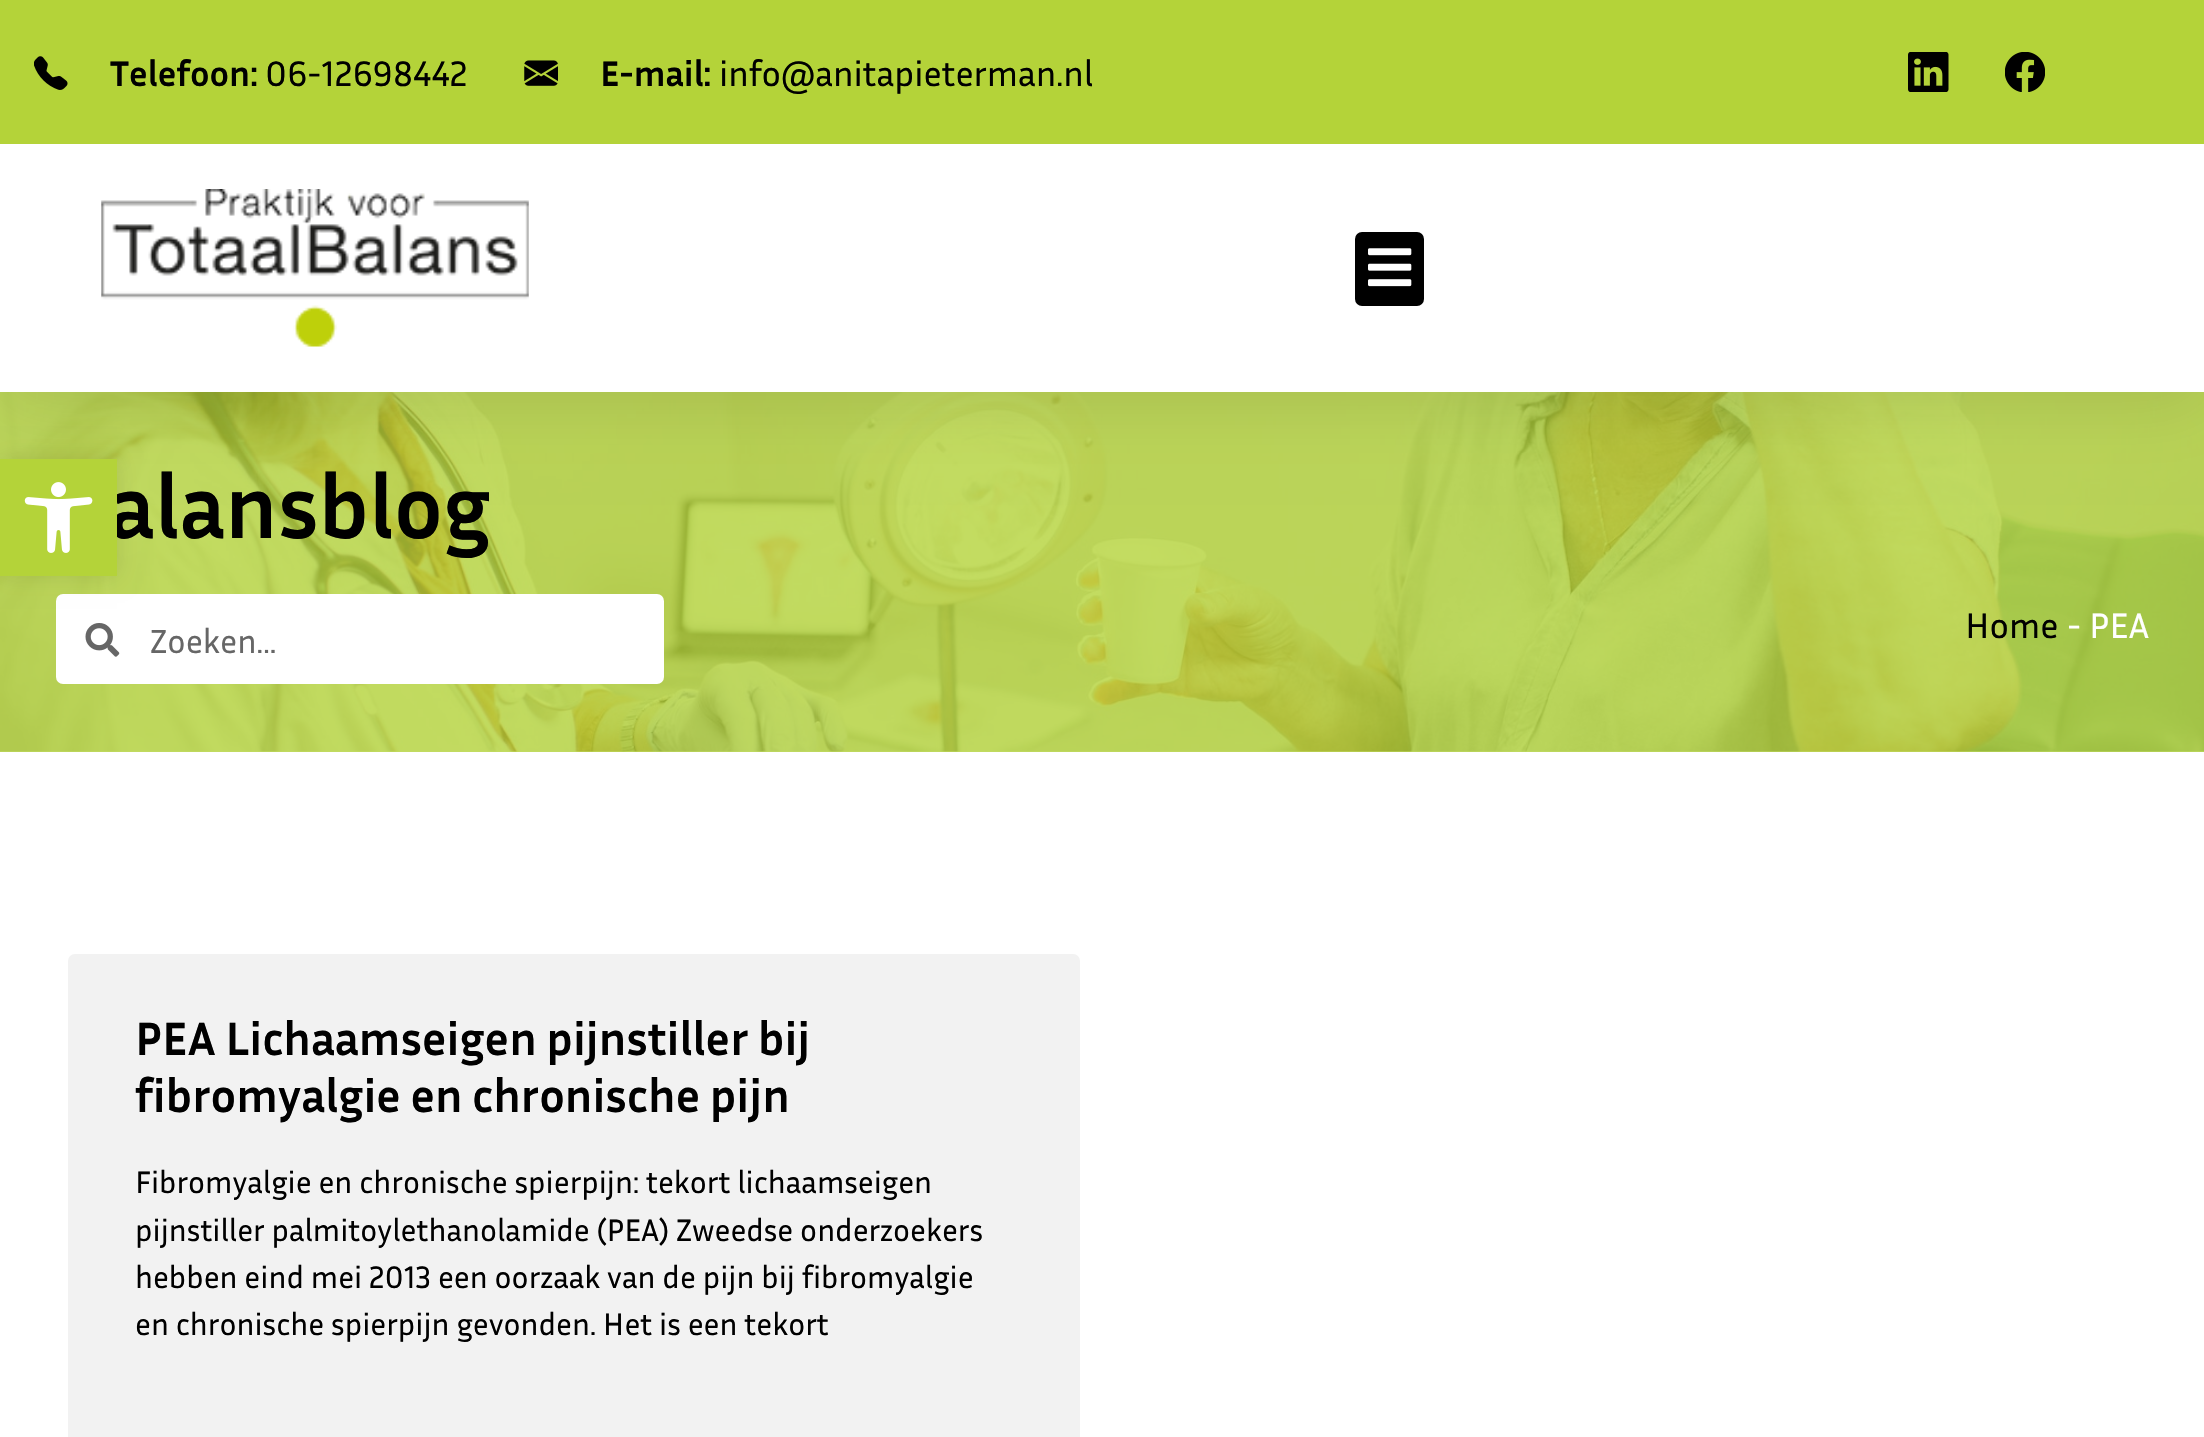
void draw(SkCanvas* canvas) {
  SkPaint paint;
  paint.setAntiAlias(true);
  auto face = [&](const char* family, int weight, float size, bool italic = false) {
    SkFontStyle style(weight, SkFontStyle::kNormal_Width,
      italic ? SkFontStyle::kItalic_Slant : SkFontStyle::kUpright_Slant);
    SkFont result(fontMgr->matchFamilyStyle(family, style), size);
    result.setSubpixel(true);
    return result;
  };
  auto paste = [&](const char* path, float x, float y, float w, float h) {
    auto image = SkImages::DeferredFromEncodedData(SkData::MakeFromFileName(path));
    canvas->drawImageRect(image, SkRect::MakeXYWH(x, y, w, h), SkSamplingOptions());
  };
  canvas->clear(0xffffffff);
  paint.setColor(0xffc3dc61);
  canvas->drawRect(SkRect::MakeXYWH(0, 751, 2204, 1), paint);
  paste("img/8.png", 0, 392, 2204, 360);
  paint.setColor(0x1a000000);
  paint.setMaskFilter(SkMaskFilter::MakeBlur(kNormal_SkBlurStyle, 34));
  canvas->drawRect(SkRect::MakeXYWH(0, 11, 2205, 392), paint);
  paint.setMaskFilter(nullptr);
  paint.setColor(0xffb4d339);
  canvas->drawRect(SkRect::MakeXYWH(0, 0, 2204, 144), paint);
  paste("img/1.png", 34, 56, 34, 34);
  paste("img/2.png", 524, 60, 34, 26);
  paste("img/3.png", 1908, 52, 41, 40);
  paste("img/4.png", 2005, 52, 40, 40);
  paint.setColor(0xffffffff);
  canvas->drawRect(SkRect::MakeXYWH(0, 144, 2204, 248), paint);
  paste("img/5.png", 101, 189, 428, 158);
  paint.setColor(0xff000000);
  canvas->drawRoundRect(SkRect::MakeXYWH(1355, 232, 69, 74), 7, 7, paint);
  paste("img/6.png", 1368, 248, 44, 39);
  paint.setColor(0xffffffff);
  canvas->drawRoundRect(SkRect::MakeXYWH(56, 594, 608, 90), 7, 7, paint);
  paint.setColor(0x1a000000);
  paint.setMaskFilter(SkMaskFilter::MakeBlur(kNormal_SkBlurStyle, 11));
  canvas->drawRect(SkRect::MakeXYWH(0, 459, 117, 117), paint);
  paint.setMaskFilter(nullptr);
  paste("img/9.png", 85, 623, 35, 34);
  paint.setColor(0xfff2f2f2);
  canvas->drawRoundRect(SkRect::MakeXYWH(68, 954, 1012, 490), 7, 7, paint);
  auto f0 = face("Inria Sans", 700, 36);
  paint.setColor(0xff000000);
  canvas->drawString("Telefoon:", 110, 86, f0, paint);
  auto f1 = face("Inria Sans", 400, 36);
  canvas->drawString("06-12698442", 265, 86, f1, paint);
  canvas->drawString("E-mail:", 600, 86, f0, paint);
  canvas->drawString("info@anitapieterman.nl", 719, 86, f1, paint);
  auto f2 = face("Inria Sans", 700, 90);
  canvas->drawString("alansblog", 109, 538, f2, paint);
  paint.setColor(0xffb4d339);
  canvas->drawRect(SkRect::MakeXYWH(0, 459, 117, 117), paint);
  paste("img/7.png", 24, 482, 69, 71);
  auto f3 = face("Inria Sans", 400, 34);
  paint.setColor(0xff666666);
  canvas->drawString("Zoeken...", 150, 653, f3, paint);
  paint.setColor(0xff000000);
  canvas->drawString("Home", 1965, 638, f1, paint);
  paint.setColor(0xffffffff);
  canvas->drawString("- PEA", 2067, 638, f1, paint);
  auto f4 = face("Inria Sans", 700, 47.25f);
  paint.setColor(0xff000000);
  canvas->drawString("PEA Lichaamseigen pijnstiller bij", 135, 1055, f4, paint);
  canvas->drawString("fibromyalgie en chronische pijn", 135, 1112, f4, paint);
  auto f5 = face("Inria Sans", 400, 31.5f);
  {
    const struct { const char* s; float x, y; } items[] = {
      {"Fibromyalgie en chronische spierpijn: tekort lichaamseigen", 135, 1193},
      {"pijnstiller palmitoylethanolamide (PEA) Zweedse onderzoekers", 135, 1241},
      {"hebben eind mei 2013 een oorzaak van de pijn bij fibromyalgie", 135, 1288},
      {"en chronische spierpijn gevonden. Het is een tekort", 135, 1335},
    };
    for (auto [s, x, y] : items) {
      canvas->drawString(s, x, y, f5, paint);
    }
  }
}
